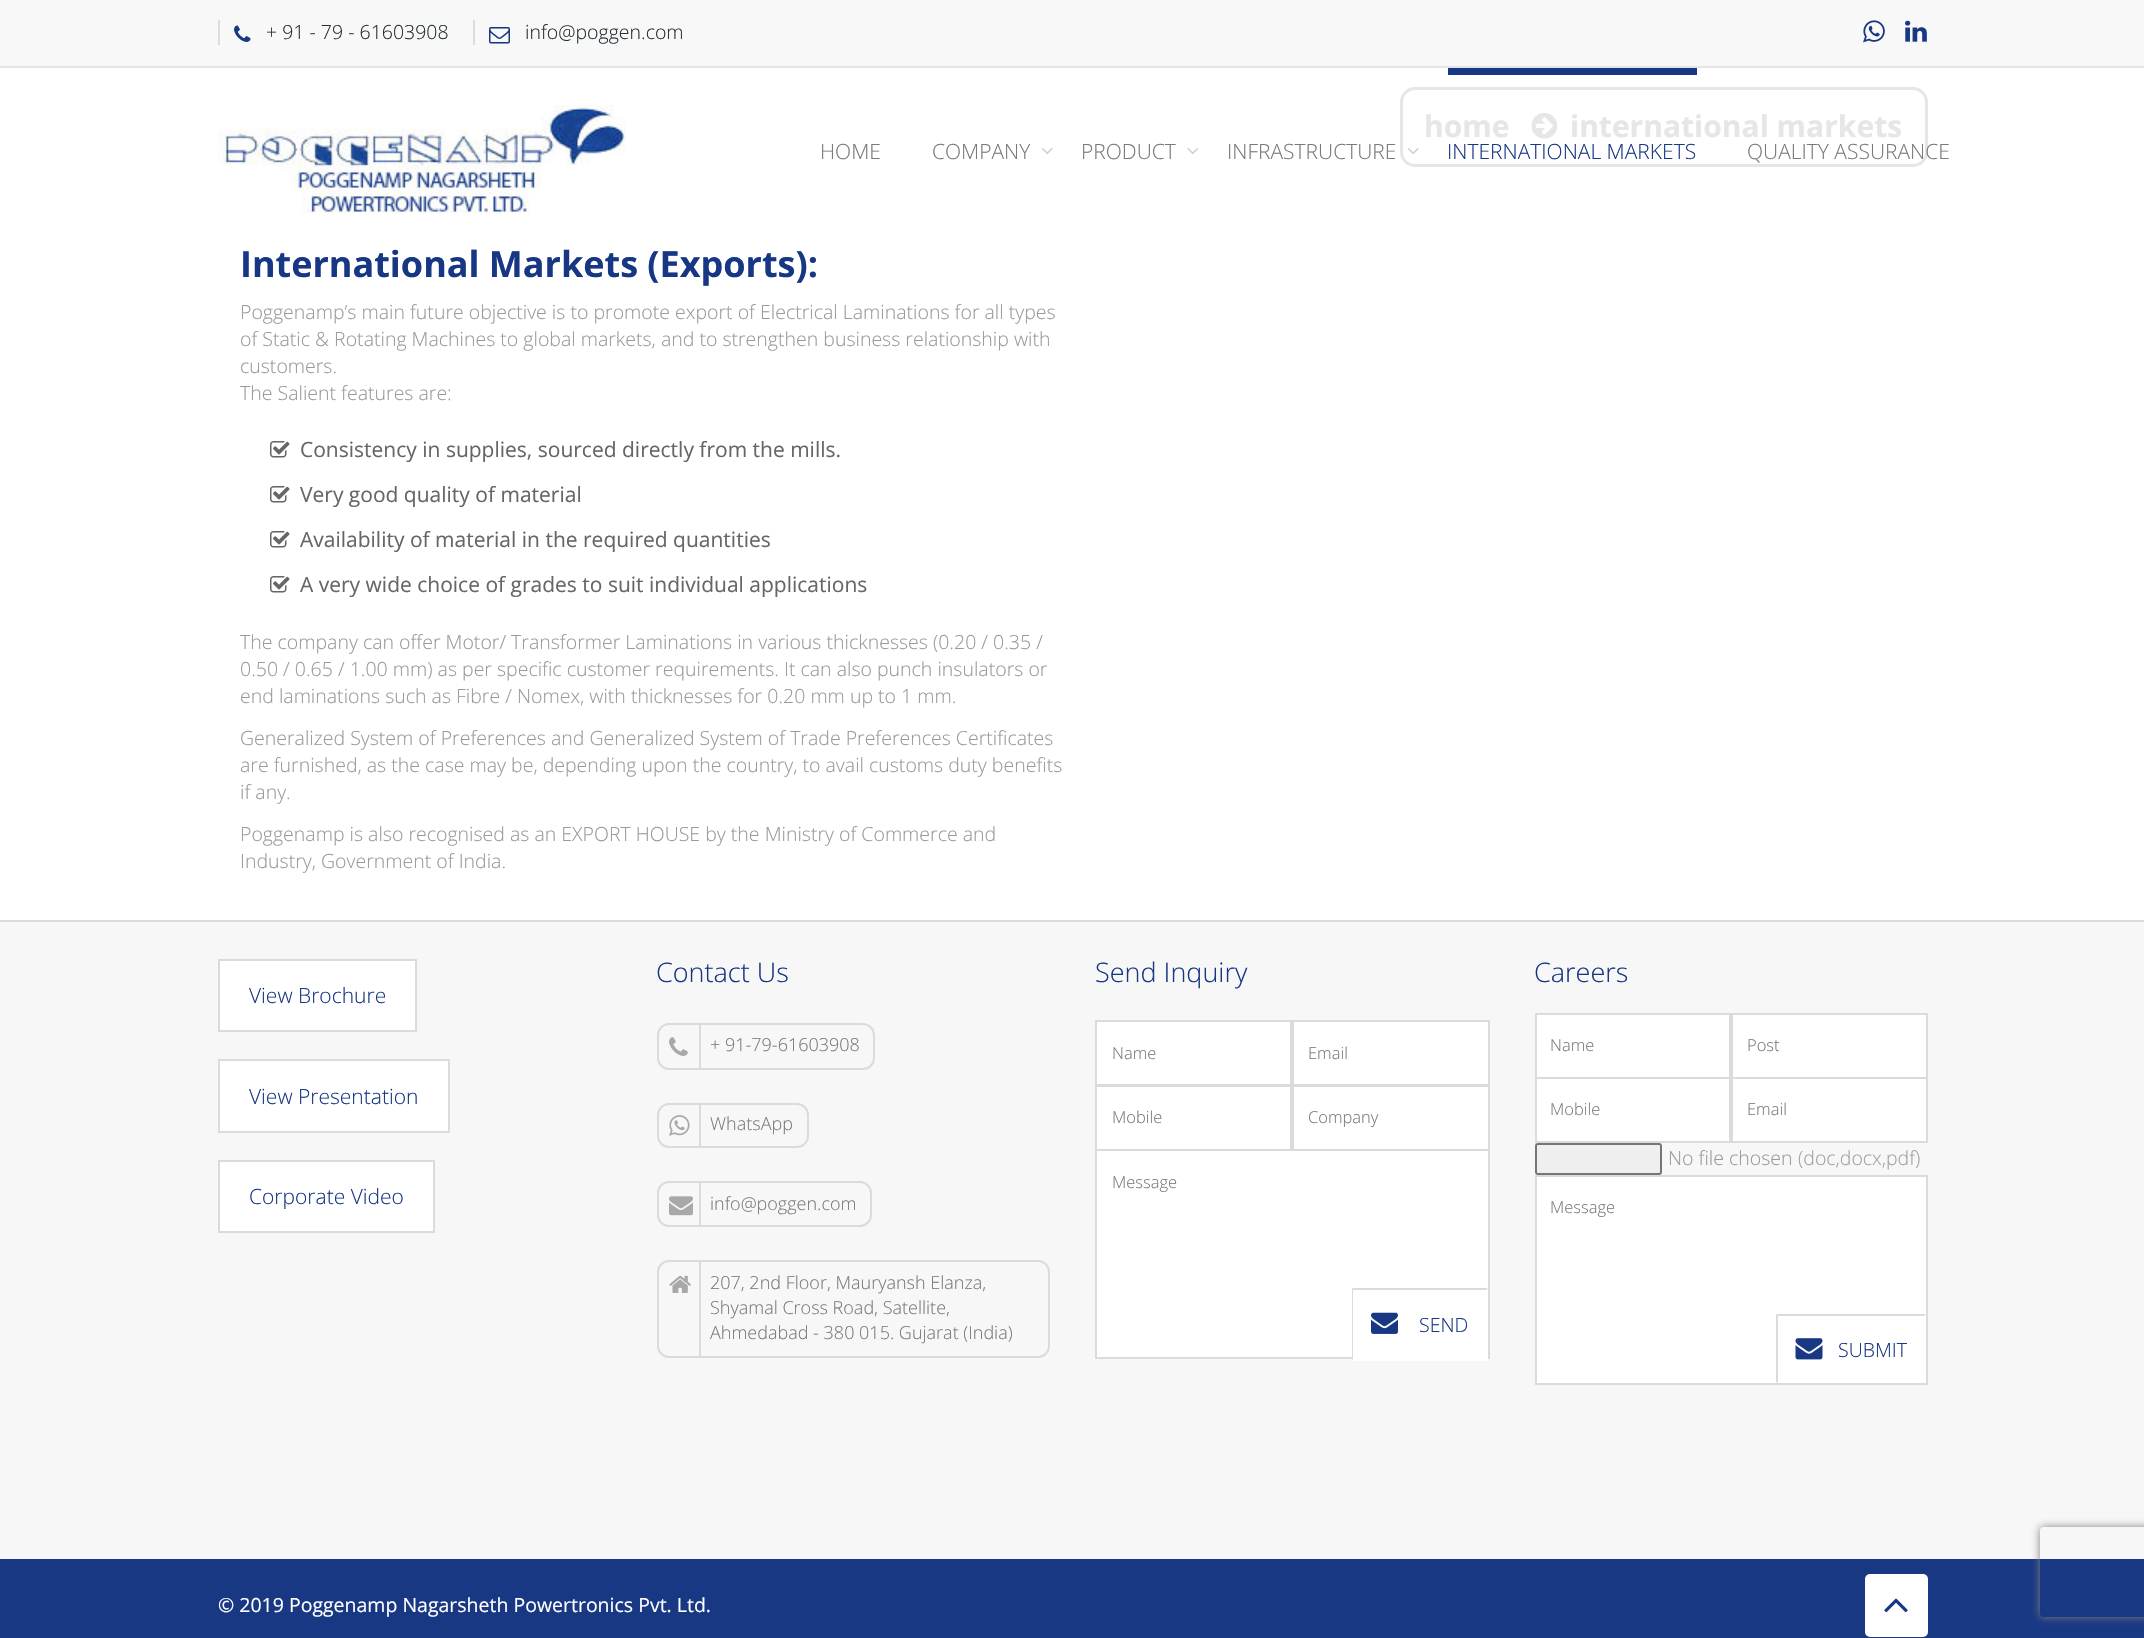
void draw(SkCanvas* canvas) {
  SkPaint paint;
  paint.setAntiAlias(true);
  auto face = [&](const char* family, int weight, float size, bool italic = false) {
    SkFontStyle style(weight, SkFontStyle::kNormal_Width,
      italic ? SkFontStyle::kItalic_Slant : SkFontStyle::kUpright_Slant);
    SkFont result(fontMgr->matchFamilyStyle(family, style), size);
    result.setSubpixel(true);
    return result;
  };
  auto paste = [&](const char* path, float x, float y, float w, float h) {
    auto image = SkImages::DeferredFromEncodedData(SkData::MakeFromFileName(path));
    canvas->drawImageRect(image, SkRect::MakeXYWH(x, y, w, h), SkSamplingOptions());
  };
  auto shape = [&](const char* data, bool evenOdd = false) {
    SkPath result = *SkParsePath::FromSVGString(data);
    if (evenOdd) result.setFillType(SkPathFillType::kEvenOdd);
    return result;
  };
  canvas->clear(0xffffffff);
  {
    const struct { float x, y, w, h; SkColor color; } items[] = {
      {0, 0, 2144, 66, 0xfff8f8f8},
      {0, 66, 2144, 2, 0xffe4e4e4},
      {218, 20, 2, 25, 0xffdddddd},
    };
    for (auto [x, y, w, h, color] : items) {
      paint.setColor(color);
      canvas->drawRect(SkRect::MakeXYWH(x, y, w, h), paint);
    }
  }
  paste("img/1.png", 234, 25, 17, 17);
  canvas->drawRect(SkRect::MakeXYWH(473, 20, 2, 25), paint);
  paste("img/2.png", 489, 27, 21, 17);
  paste("img/3.png", 1863, 20, 22, 23);
  paste("img/4.png", 1905, 20, 22, 22);
  paste("img/5.png", 217, 105, 409, 109);
  paste("img/6.png", 1042, 148, 11, 7);
  paste("img/7.png", 1187, 148, 11, 7);
  paint.setStroke(true);
  paint.setStrokeWidth(3);
  paint.setColor(0xffe6e6e6);
  canvas->drawRoundRect(SkRect::MakeXYWH(1401.5f, 88.5f, 525, 77), 13.5f, 13.5f, paint);
  paste("img/6.png", 1408, 148, 11, 7);
  paint.setStroke(false);
  paint.setColor(0xff183884);
  canvas->drawRect(SkRect::MakeXYWH(1448, 68, 249, 7), paint);
  paste("img/8.png", 1531, 112, 27, 27);
  paste("img/9.png", 270, 441, 20, 17);
  paste("img/9.png", 270, 486, 20, 17);
  paste("img/9.png", 270, 531, 20, 17);
  paste("img/9.png", 270, 576, 20, 17);
  paint.setColor(0xfff7f7f7);
  canvas->drawRect(SkRect::MakeXYWH(0, 922, 2144, 637), paint);
  paint.setColor(0xffdbdbdb);
  canvas->drawRect(SkRect::MakeXYWH(0, 920, 2144, 2), paint);
  paint.setColor(0xffffffff);
  canvas->drawRect(SkRect::MakeXYWH(219, 960, 197, 71), paint);
  paint.setStroke(true);
  paint.setStrokeWidth(2);
  paint.setColor(0xffdbdbdb);
  canvas->drawRect(SkRect::MakeXYWH(219, 960, 197, 71), paint);
  paint.setStroke(false);
  paint.setColor(0xffffffff);
  canvas->drawRect(SkRect::MakeXYWH(219, 1060, 230, 72), paint);
  paint.setStroke(true);
  paint.setColor(0xffdbdbdb);
  canvas->drawRect(SkRect::MakeXYWH(219, 1060, 230, 72), paint);
  paint.setStroke(false);
  paint.setColor(0xffffffff);
  canvas->drawRect(SkRect::MakeXYWH(219, 1161, 215, 71), paint);
  paint.setStroke(true);
  paint.setColor(0xffdbdbdb);
  canvas->drawRect(SkRect::MakeXYWH(219, 1161, 215, 71), paint);
  canvas->drawRoundRect(SkRect::MakeXYWH(658, 1024, 216, 45), 11, 11, paint);
  paste("img/10.png", 669, 1037, 19, 19);
  paint.setStroke(false);
  canvas->drawRect(SkRect::MakeXYWH(699, 1025, 2, 43), paint);
  paint.setStroke(true);
  canvas->drawRoundRect(SkRect::MakeXYWH(658, 1104, 150, 43), 11, 11, paint);
  paste("img/11.png", 669, 1115, 21, 21);
  paint.setStroke(false);
  canvas->drawRect(SkRect::MakeXYWH(699, 1104, 2, 42), paint);
  paint.setStroke(true);
  canvas->drawRoundRect(SkRect::MakeXYWH(658, 1182, 213, 44), 11, 11, paint);
  paste("img/12.png", 669, 1196, 24, 20);
  paint.setStroke(false);
  canvas->drawRect(SkRect::MakeXYWH(699, 1182, 2, 44), paint);
  paint.setStroke(true);
  canvas->drawRoundRect(SkRect::MakeXYWH(658, 1261, 391, 96), 11, 11, paint);
  paste("img/13.png", 669, 1275, 22, 18);
  paint.setStroke(false);
  canvas->drawRect(SkRect::MakeXYWH(699, 1262, 2, 94), paint);
  paint.setColor(0xffffffff);
  canvas->drawRect(SkRect::MakeXYWH(1096, 1021, 195, 64), paint);
  paint.setStroke(true);
  paint.setColor(0xffdbdbdb);
  canvas->drawRect(SkRect::MakeXYWH(1096, 1021, 195, 64), paint);
  paint.setStroke(false);
  paint.setColor(0xffffffff);
  canvas->drawRect(SkRect::MakeXYWH(1293, 1021, 196, 64), paint);
  paint.setStroke(true);
  paint.setColor(0xffdbdbdb);
  canvas->drawRect(SkRect::MakeXYWH(1293, 1021, 196, 64), paint);
  paint.setStroke(false);
  paint.setColor(0xffffffff);
  canvas->drawRect(SkRect::MakeXYWH(1096, 1086, 195, 64), paint);
  paint.setStroke(true);
  paint.setColor(0xffdbdbdb);
  canvas->drawRect(SkRect::MakeXYWH(1096, 1086, 195, 64), paint);
  paint.setStroke(false);
  paint.setColor(0xffffffff);
  canvas->drawRect(SkRect::MakeXYWH(1293, 1086, 196, 64), paint);
  paint.setStroke(true);
  paint.setColor(0xffdbdbdb);
  canvas->drawRect(SkRect::MakeXYWH(1293, 1086, 196, 64), paint);
  paint.setStroke(false);
  paint.setColor(0xffffffff);
  canvas->drawRect(SkRect::MakeXYWH(1096, 1150, 393, 208), paint);
  paint.setStroke(true);
  paint.setColor(0xffdbdbdb);
  canvas->drawRect(SkRect::MakeXYWH(1096, 1150, 393, 208), paint);
  paint.setStroke(false);
  paint.setColor(0xffffffff);
  canvas->drawRect(SkRect::MakeXYWH(1352, 1357, 136, 4), paint);
  paint.setColor(0xffdbdbdb);
  canvas->drawPath(shape("M1352 1288H1488L1486 1290H1353Z"), paint);
  canvas->drawPath(shape("M1352 1360V1288L1353 1290V1359Z"), paint);
  paste("img/14.png", 1371, 1312, 27, 22);
  paint.setColor(0xffffffff);
  canvas->drawRect(SkRect::MakeXYWH(1536, 1014, 194, 64), paint);
  paint.setStroke(true);
  paint.setColor(0xffdbdbdb);
  canvas->drawRect(SkRect::MakeXYWH(1536, 1014, 194, 64), paint);
  paint.setStroke(false);
  paint.setColor(0xffffffff);
  canvas->drawRect(SkRect::MakeXYWH(1732, 1014, 195, 64), paint);
  paint.setStroke(true);
  paint.setColor(0xffdbdbdb);
  canvas->drawRect(SkRect::MakeXYWH(1732, 1014, 195, 64), paint);
  paint.setStroke(false);
  paint.setColor(0xffffffff);
  canvas->drawRect(SkRect::MakeXYWH(1536, 1078, 194, 64), paint);
  paint.setStroke(true);
  paint.setColor(0xffdbdbdb);
  canvas->drawRect(SkRect::MakeXYWH(1536, 1078, 194, 64), paint);
  paint.setStroke(false);
  paint.setColor(0xffffffff);
  canvas->drawRect(SkRect::MakeXYWH(1732, 1078, 195, 64), paint);
  paint.setStroke(true);
  paint.setColor(0xffdbdbdb);
  canvas->drawRect(SkRect::MakeXYWH(1732, 1078, 195, 64), paint);
  paint.setStroke(false);
  paint.setColor(0xffefefef);
  canvas->drawRoundRect(SkRect::MakeXYWH(1536, 1144, 125, 30), 2, 2, paint);
  paint.setStroke(true);
  paint.setColor(0xff767676);
  canvas->drawRoundRect(SkRect::MakeXYWH(1536, 1144, 125, 30), 2, 2, paint);
  paint.setStroke(false);
  paint.setColor(0xffffffff);
  canvas->drawRect(SkRect::MakeXYWH(1536, 1176, 391, 208), paint);
  paint.setStroke(true);
  paint.setColor(0xffdbdbdb);
  canvas->drawRect(SkRect::MakeXYWH(1536, 1176, 391, 208), paint);
  paint.setStroke(false);
  canvas->drawPath(shape("M1776 1314H1926L1924 1316H1778Z"), paint);
  canvas->drawPath(shape("M1776 1383V1314L1778 1316V1382Z"), paint);
  paste("img/15.png", 1795, 1338, 28, 22);
  paint.setColor(0xff183884);
  canvas->drawRect(SkRect::MakeXYWH(0, 1559, 2144, 79), paint);
  paint.setColor(0xffffffff);
  canvas->drawRoundRect(SkRect::MakeXYWH(1865, 1574, 63, 63), 5, 5, paint);
  paste("img/16.png", 1884, 1598, 24, 15);
  canvas->save();
  canvas->clipPath(shape("M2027 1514H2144V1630H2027ZM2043 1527H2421C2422.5 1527 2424 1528.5 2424 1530V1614C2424 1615.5 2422.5 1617 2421 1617H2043C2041.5 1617 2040 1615.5 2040 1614V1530C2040 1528.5 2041.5 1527 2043 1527Z", true), true);
  paint.setColor(0xff808080);
  paint.setMaskFilter(SkMaskFilter::MakeBlur(kNormal_SkBlurStyle, 4));
  canvas->drawRoundRect(SkRect::MakeXYWH(2040, 1527, 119, 90), 3, 3, paint);
  paint.setMaskFilter(nullptr);
  canvas->restore();
  auto f0 = face("Open Sans", 300, 19.5f);
  paint.setColor(0xff253135);
  canvas->drawString("+ 91 - 79 - 61603908", 266, 39, f0, paint);
  canvas->drawString("info@poggen.com", 525, 39, f0, paint);
  auto f1 = face("Open Sans", 300, 21);
  paint.setColor(0xff797979);
  {
    const struct { const char* s; float x, y; } items[] = {
      {"HOME", 820, 159},
      {"COMPANY", 932, 159},
      {"PRODUCT", 1081, 159},
      {"INFRASTRUCTURE", 1227, 159},
    };
    for (auto [s, x, y] : items) {
      canvas->drawString(s, x, y, f1, paint);
    }
  }
  paint.setColor(0xff173784);
  canvas->drawString("INTERNATIONAL MARKETS", 1447, 159, f1, paint);
  paint.setColor(0xff797979);
  canvas->drawString("QUALITY ASSURANCE", 1747, 159, f1, paint);
  auto f2 = face("Open Sans", 700, 30);
  paint.setColor(0xffe6e6e6);
  canvas->drawString("home", 1424, 137, f2, paint);
  canvas->drawString("international markets", 1570, 137, f2, paint);
  auto f3 = face("Open Sans", 700, 36);
  paint.setColor(0xff173784);
  canvas->drawString("International Markets (Exports):", 240, 277, f3, paint);
  paint.setColor(0xff9a9a9a);
  {
    const struct { const char* s; float x, y; } items[] = {
      {"Poggenamp’s main future objective is to promote export of Electrical Laminations for all types", 240, 319},
      {"of Static & Rotating Machines to global markets, and to strengthen business relationship with", 240, 346},
      {"customers.", 240, 373},
      {"The Salient features are:", 240, 400},
    };
    for (auto [s, x, y] : items) {
      canvas->drawString(s, x, y, f0, paint);
    }
  }
  auto f4 = face("Open Sans", 400, 21);
  paint.setColor(0xff666666);
  {
    const struct { const char* s; float x, y; } items[] = {
      {"Consistency in supplies, sourced directly from the mills.", 300, 457},
      {"Very good quality of material", 300, 502},
      {"Availability of material in the required quantities", 300, 547},
      {"A very wide choice of grades to suit individual applications", 300, 592},
    };
    for (auto [s, x, y] : items) {
      canvas->drawString(s, x, y, f4, paint);
    }
  }
  paint.setColor(0xff9a9a9a);
  {
    const struct { const char* s; float x, y; } items[] = {
      {"The company can offer Motor/ Transformer Laminations in various thicknesses (0.20 / 0.35 /", 240, 649},
      {"0.50 / 0.65 / 1.00 mm) as per specific customer requirements. It can also punch insulators or", 240, 676},
      {"end laminations such as Fibre / Nomex, with thicknesses for 0.20 mm up to 1 mm.", 240, 703},
      {"Generalized System of Preferences and Generalized System of Trade Preferences Certificates", 240, 745},
      {"are furnished, as the case may be, depending upon the country, to avail customs duty benefits", 240, 772},
      {"if any.", 240, 799},
      {"Poggenamp is also recognised as an EXPORT HOUSE by the Ministry of Commerce and", 240, 841},
      {"Industry, Government of India.", 240, 868},
    };
    for (auto [s, x, y] : items) {
      canvas->drawString(s, x, y, f0, paint);
    }
  }
  paint.setColor(0xff173784);
  {
    const struct { const char* s; float x, y; } items[] = {
      {"View Brochure", 249, 1003},
      {"View Presentation", 249, 1104},
      {"Corporate Video", 249, 1204},
    };
    for (auto [s, x, y] : items) {
      canvas->drawString(s, x, y, f1, paint);
    }
  }
  auto f5 = face("Open Sans", 300, 27);
  canvas->drawString("Contact Us", 656, 982, f5, paint);
  auto f6 = face("Open Sans", 300, 18);
  paint.setColor(0xff797979);
  {
    const struct { const char* s; float x, y; } items[] = {
      {"+ 91-79-61603908", 710, 1051},
      {"WhatsApp", 710, 1130},
      {"info@poggen.com", 710, 1210},
      {"207, 2nd Floor, Mauryansh Elanza,", 710, 1289},
      {"Shyamal Cross Road, Satellite,", 710, 1314},
      {"Ahmedabad - 380 015. Gujarat (India)", 710, 1339},
    };
    for (auto [s, x, y] : items) {
      canvas->drawString(s, x, y, f6, paint);
    }
  }
  paint.setColor(0xff173784);
  canvas->drawString("Send Inquiry", 1095, 982, f5, paint);
  auto f7 = face("Open Sans", 300, 16.5f);
  paint.setColor(0xff797979);
  {
    const struct { const char* s; float x, y; } items[] = {
      {"Name", 1112, 1059},
      {"Email", 1308, 1059},
      {"Mobile", 1112, 1123},
      {"Company", 1308, 1123},
      {"Message", 1112, 1188},
    };
    for (auto [s, x, y] : items) {
      canvas->drawString(s, x, y, f7, paint);
    }
  }
  paint.setColor(0xff173784);
  canvas->drawString("SEND", 1419, 1332, f0, paint);
  canvas->drawString("Careers", 1534, 982, f5, paint);
  paint.setColor(0xff797979);
  {
    const struct { const char* s; float x, y; } items[] = {
      {"Name", 1550, 1051},
      {"Post", 1747, 1051},
      {"Mobile", 1550, 1115},
      {"Email", 1747, 1115},
    };
    for (auto [s, x, y] : items) {
      canvas->drawString(s, x, y, f7, paint);
    }
  }
  paint.setColor(0xff9a9a9a);
  canvas->drawString("No file chosen", 1668, 1165, f0, paint);
  paint.setColor(0xffa2a2a2);
  canvas->drawString("(doc,docx,pdf)", 1798, 1165, f0, paint);
  paint.setColor(0xff797979);
  canvas->drawString("Message", 1550, 1213, f7, paint);
  paint.setColor(0xff173784);
  canvas->drawString("SUBMIT", 1838, 1357, f0, paint);
  auto f8 = face("Open Sans", 400, 19.5f);
  paint.setColor(0xffffffff);
  canvas->drawString("© 2019 Poggenamp Nagarsheth Powertronics Pvt. Ltd.", 218, 1612, f8, paint);
}
